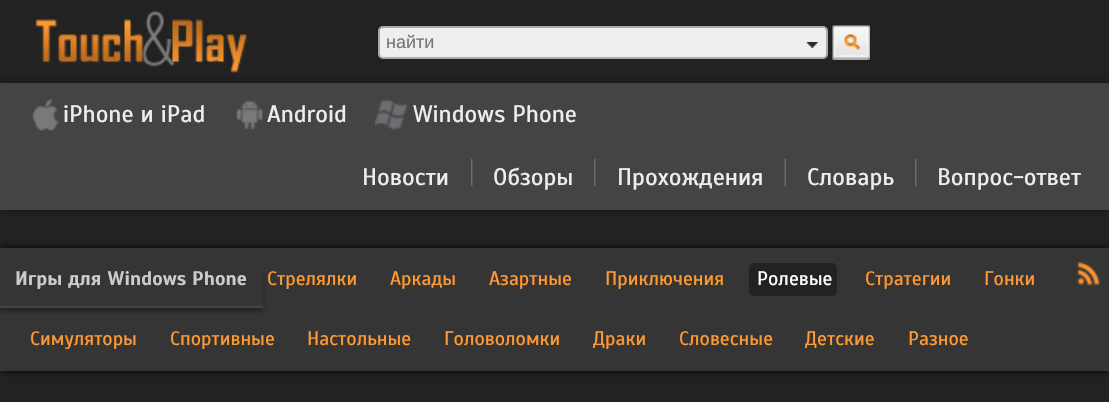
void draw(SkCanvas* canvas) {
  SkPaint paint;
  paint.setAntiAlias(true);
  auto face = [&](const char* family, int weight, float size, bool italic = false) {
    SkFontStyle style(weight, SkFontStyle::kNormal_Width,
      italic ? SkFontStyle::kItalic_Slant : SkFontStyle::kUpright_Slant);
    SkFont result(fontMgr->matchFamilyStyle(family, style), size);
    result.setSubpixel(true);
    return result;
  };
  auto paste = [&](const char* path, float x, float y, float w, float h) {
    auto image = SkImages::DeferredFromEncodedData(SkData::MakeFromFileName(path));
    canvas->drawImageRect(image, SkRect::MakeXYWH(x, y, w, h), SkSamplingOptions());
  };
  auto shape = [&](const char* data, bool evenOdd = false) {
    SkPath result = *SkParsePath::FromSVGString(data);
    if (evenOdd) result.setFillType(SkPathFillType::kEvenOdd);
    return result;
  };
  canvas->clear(0xff222222);
  paint.setColor(0x80000000);
  paint.setMaskFilter(SkMaskFilter::MakeBlur(kNormal_SkBlurStyle, 4));
  canvas->drawRect(SkRect::MakeXYWH(0, 83, 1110, 127), paint);
  paint.setMaskFilter(nullptr);
  paste("img/1.png", 35, 10, 213, 63);
  paint.setColor(0xffeeeeee);
  canvas->drawRoundRect(SkRect::MakeXYWH(379, 27, 448, 31), 4, 4, paint);
  paint.setStroke(true);
  paint.setStrokeWidth(2);
  paint.setColor(0xffaaaaaa);
  canvas->drawRoundRect(SkRect::MakeXYWH(379, 27, 448, 31), 4, 4, paint);
  paste("img/2.png", 806, 42, 12, 6);
  paste("img/3.png", 832, 25, 38, 35);
  paint.setStroke(false);
  paint.setColor(0xff444444);
  canvas->drawRect(SkRect::MakeXYWH(0, 83, 1109, 127), paint);
  paste("img/4.png", 32, 99, 27, 32);
  paste("img/5.png", 236, 99, 27, 31);
  paste("img/6.png", 375, 100, 32, 30);
  paste("img/7.png", 471, 159, 2, 27);
  paste("img/7.png", 594, 159, 2, 27);
  paste("img/8.png", 784, 159, 2, 27);
  paste("img/7.png", 915, 159, 2, 27);
  paint.setColor(0xff000000);
  paint.setMaskFilter(SkMaskFilter::MakeBlur(kNormal_SkBlurStyle, 4));
  canvas->drawRect(SkRect::MakeXYWH(0, 248, 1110, 123), paint);
  paint.setMaskFilter(nullptr);
  paint.setColor(0xff363535);
  canvas->drawRect(SkRect::MakeXYWH(0, 248, 1109, 123), paint);
  canvas->save();
  canvas->clipPath(shape("M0 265H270V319H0ZM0 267H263V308H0Z", true), true);
  paint.setColor(0x4d000000);
  paint.setMaskFilter(SkMaskFilter::MakeBlur(kNormal_SkBlurStyle, 2));
  canvas->drawRect(SkRect::MakeXYWH(0, 272, 263, 40), paint);
  paint.setMaskFilter(nullptr);
  canvas->restore();
  paint.setColor(0xff444444);
  canvas->drawRect(SkRect::MakeXYWH(0, 306, 263, 2), paint);
  paint.setColor(0xff222222);
  canvas->drawRoundRect(SkRect::MakeXYWH(749, 263, 88, 33), 5, 5, paint);
  paste("img/9.png", 1077, 262, 23, 24);
  auto f0 = face("Liberation Sans", 400, 18);
  paint.setColor(0xff757575);
  canvas->drawString("найти", 386, 48, f0, paint);
  auto f1 = face("Scada", 400, 24);
  paint.setColor(0xffeeeeee);
  {
    const struct { const char* s; float x, y; } items[] = {
      {"iPhone и iPad", 63, 122},
      {"Android", 267, 122},
      {"Windows Phone", 413, 122},
      {"Новости", 362, 185},
      {"Обзоры", 493, 185},
      {"Прохождения", 617, 185},
      {"Словарь", 807, 185},
      {"Вопрос-ответ", 937, 185},
    };
    for (auto [s, x, y] : items) {
      canvas->drawString(s, x, y, f1, paint);
    }
  }
  auto f2 = face("Scada", 700, 19.5f);
  paint.setColor(0xffcccccc);
  canvas->drawString("Игры для Windows Phone", 15, 285, f2, paint);
  auto f3 = face("Scada", 400, 19.5f);
  paint.setColor(0xffff9933);
  {
    const struct { const char* s; float x, y; } items[] = {
      {"Стрелялки", 267, 285},
      {"Аркады", 390, 285},
      {"Азартные", 489, 285},
      {"Приключения", 605, 285},
    };
    for (auto [s, x, y] : items) {
      canvas->drawString(s, x, y, f3, paint);
    }
  }
  paint.setColor(0xffffffff);
  canvas->drawString("Ролевые", 757, 285, f3, paint);
  paint.setColor(0xffff9933);
  {
    const struct { const char* s; float x, y; } items[] = {
      {"Стратегии", 865, 285},
      {"Гонки", 984, 285},
      {"Симуляторы", 30, 345},
      {"Спортивные", 170, 345},
      {"Настольные", 307, 345},
      {"Головоломки", 444, 345},
      {"Драки", 593, 345},
      {"Словесные", 679, 345},
      {"Детские", 805, 345},
      {"Разное", 908, 345},
    };
    for (auto [s, x, y] : items) {
      canvas->drawString(s, x, y, f3, paint);
    }
  }
}
